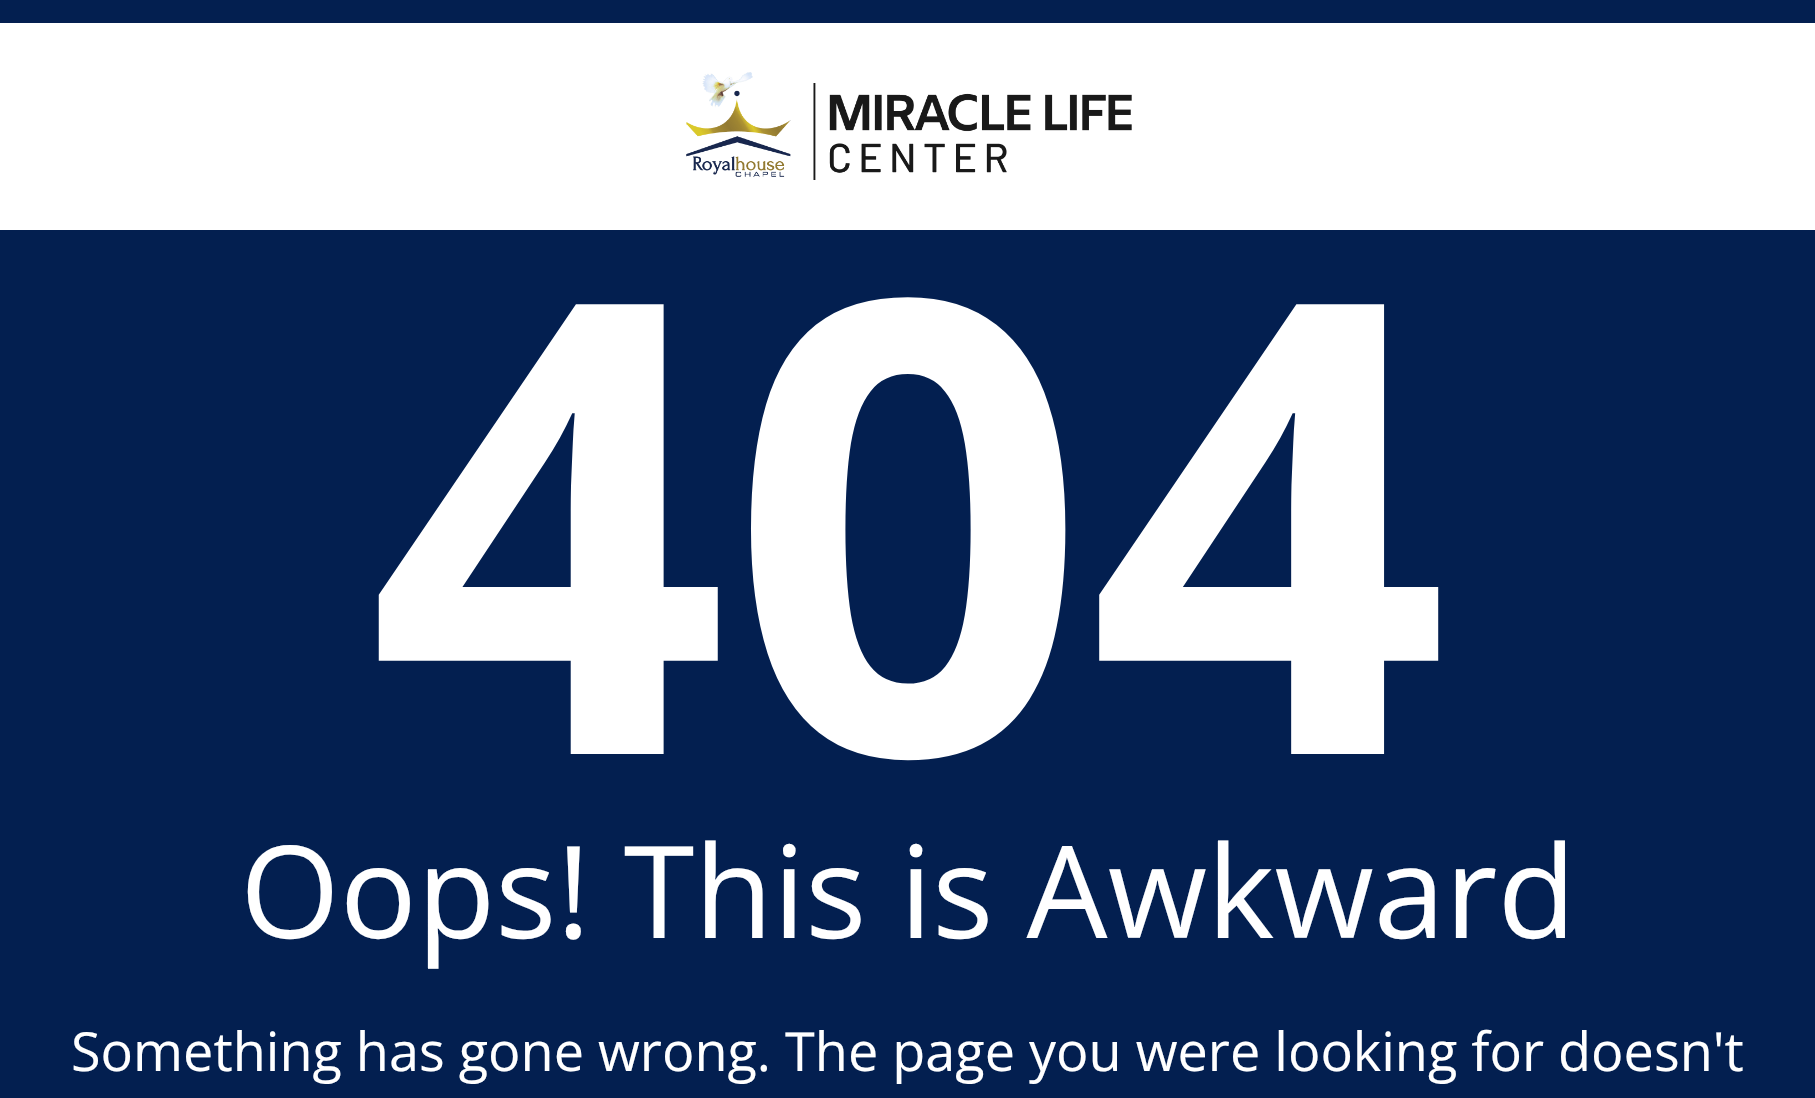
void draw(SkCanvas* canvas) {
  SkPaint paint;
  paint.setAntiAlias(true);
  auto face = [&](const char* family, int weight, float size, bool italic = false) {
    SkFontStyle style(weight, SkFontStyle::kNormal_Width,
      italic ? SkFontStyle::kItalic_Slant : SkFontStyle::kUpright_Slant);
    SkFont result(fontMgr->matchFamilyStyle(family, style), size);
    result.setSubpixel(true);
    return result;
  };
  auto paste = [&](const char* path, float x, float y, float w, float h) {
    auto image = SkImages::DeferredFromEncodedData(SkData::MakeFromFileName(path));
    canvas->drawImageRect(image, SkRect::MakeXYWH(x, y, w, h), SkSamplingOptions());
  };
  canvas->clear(0xff031f50);
  paint.setColor(0xffffffff);
  canvas->drawRect(SkRect::MakeXYWH(0, 23, 1815, 207), paint);
  paste("img/1.png", 686, 72, 446, 108);
  auto f0 = face("Open Sans", 700, 630);
  canvas->drawString("404", 368, 754, f0, paint);
  auto f1 = face("Open Sans", 400, 128.25f);
  canvas->drawString("Oops! This is Awkward", 240, 938, f1, paint);
  auto f2 = face("Open Sans", 400, 54);
  canvas->drawString("Something has gone wrong. The page you were looking for doesn't", 71, 1071, f2, paint);
}
